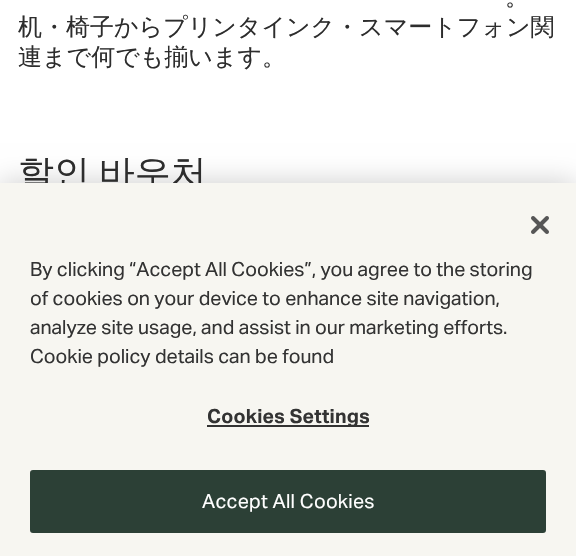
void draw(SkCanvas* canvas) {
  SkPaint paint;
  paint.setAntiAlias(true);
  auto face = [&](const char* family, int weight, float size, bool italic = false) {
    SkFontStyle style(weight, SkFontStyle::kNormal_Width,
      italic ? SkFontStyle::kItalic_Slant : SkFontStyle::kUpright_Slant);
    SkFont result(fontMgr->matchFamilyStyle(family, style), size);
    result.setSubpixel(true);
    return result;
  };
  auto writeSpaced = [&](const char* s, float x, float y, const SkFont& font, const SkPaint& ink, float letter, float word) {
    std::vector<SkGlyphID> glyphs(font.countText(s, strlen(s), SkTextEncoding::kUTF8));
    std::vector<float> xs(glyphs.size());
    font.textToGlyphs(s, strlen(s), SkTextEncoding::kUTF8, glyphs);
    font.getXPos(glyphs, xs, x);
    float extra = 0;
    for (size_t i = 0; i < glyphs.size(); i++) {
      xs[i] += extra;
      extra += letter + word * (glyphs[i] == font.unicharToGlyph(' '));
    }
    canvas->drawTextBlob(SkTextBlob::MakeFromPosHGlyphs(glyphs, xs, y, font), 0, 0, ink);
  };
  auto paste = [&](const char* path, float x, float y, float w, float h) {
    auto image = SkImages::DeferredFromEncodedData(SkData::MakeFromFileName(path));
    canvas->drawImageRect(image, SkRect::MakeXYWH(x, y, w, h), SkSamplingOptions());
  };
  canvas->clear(0xffffffff);
  paint.setColor(0x33000000);
  paint.setMaskFilter(SkMaskFilter::MakeBlur(kNormal_SkBlurStyle, 13.5f));
  canvas->drawRect(SkRect::MakeXYWH(0, 183, 576, 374), paint);
  paint.setMaskFilter(nullptr);
  auto f0 = face("WenQuanYi Zen Hei", 500, 24);
  paint.setColor(0xff2d2d2d);
  {
    const struct { const char* s; float x, y; } items[] = {
      {"。", 505, 5},
      {"机・椅子からプリンタインク・スマートフォン関", 18, 35},
      {"連まで何でも揃います。", 18, 65},
    };
    for (auto [s, x, y] : items) {
      canvas->drawString(s, x, y, f0, paint);
    }
  }
  auto f1 = face("WenQuanYi Zen Hei", 500, 36);
  writeSpaced("할인 바우처", 18, 185, f1, paint, 0, -2);
  paint.setColor(0xfff7f6f1);
  canvas->drawRect(SkRect::MakeXYWH(0, 183, 576, 373), paint);
  paste("img/1.png", 531, 216, 18, 18);
  auto f2 = face("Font", 400, 19.5f);
  paint.setColor(0xff333333);
  {
    const struct { const char* s; float x, y; } items[] = {
      {"By clicking “Accept All Cookies”, you agree to the storing", 30, 276},
      {"of cookies on your device to enhance site navigation,", 30, 305},
      {"analyze site usage, and assist in our marketing efforts.", 30, 334},
      {"Cookie policy details can be found", 30, 363},
    };
    for (auto [s, x, y] : items) {
      canvas->drawString(s, x, y, f2, paint);
    }
  }
  canvas->drawRect(SkRect::MakeXYWH(207, 425, 162, 2), paint);
  auto f3 = face("Font", 700, 19.5f);
  writeSpaced("Cookies Settings", 207, 423, f3, paint, 0.25f, 0);
  paint.setColor(0xff2c4036);
  canvas->drawRoundRect(SkRect::MakeXYWH(31, 471, 514, 61), 2, 2, paint);
  paint.setStroke(true);
  paint.setStrokeWidth(2);
  canvas->drawRoundRect(SkRect::MakeXYWH(31, 471, 514, 61), 2, 2, paint);
  paint.setStroke(false);
  paint.setColor(0xffffffff);
  writeSpaced("Accept All Cookies", 202, 508, f2, paint, 0.25f, 0);
}
